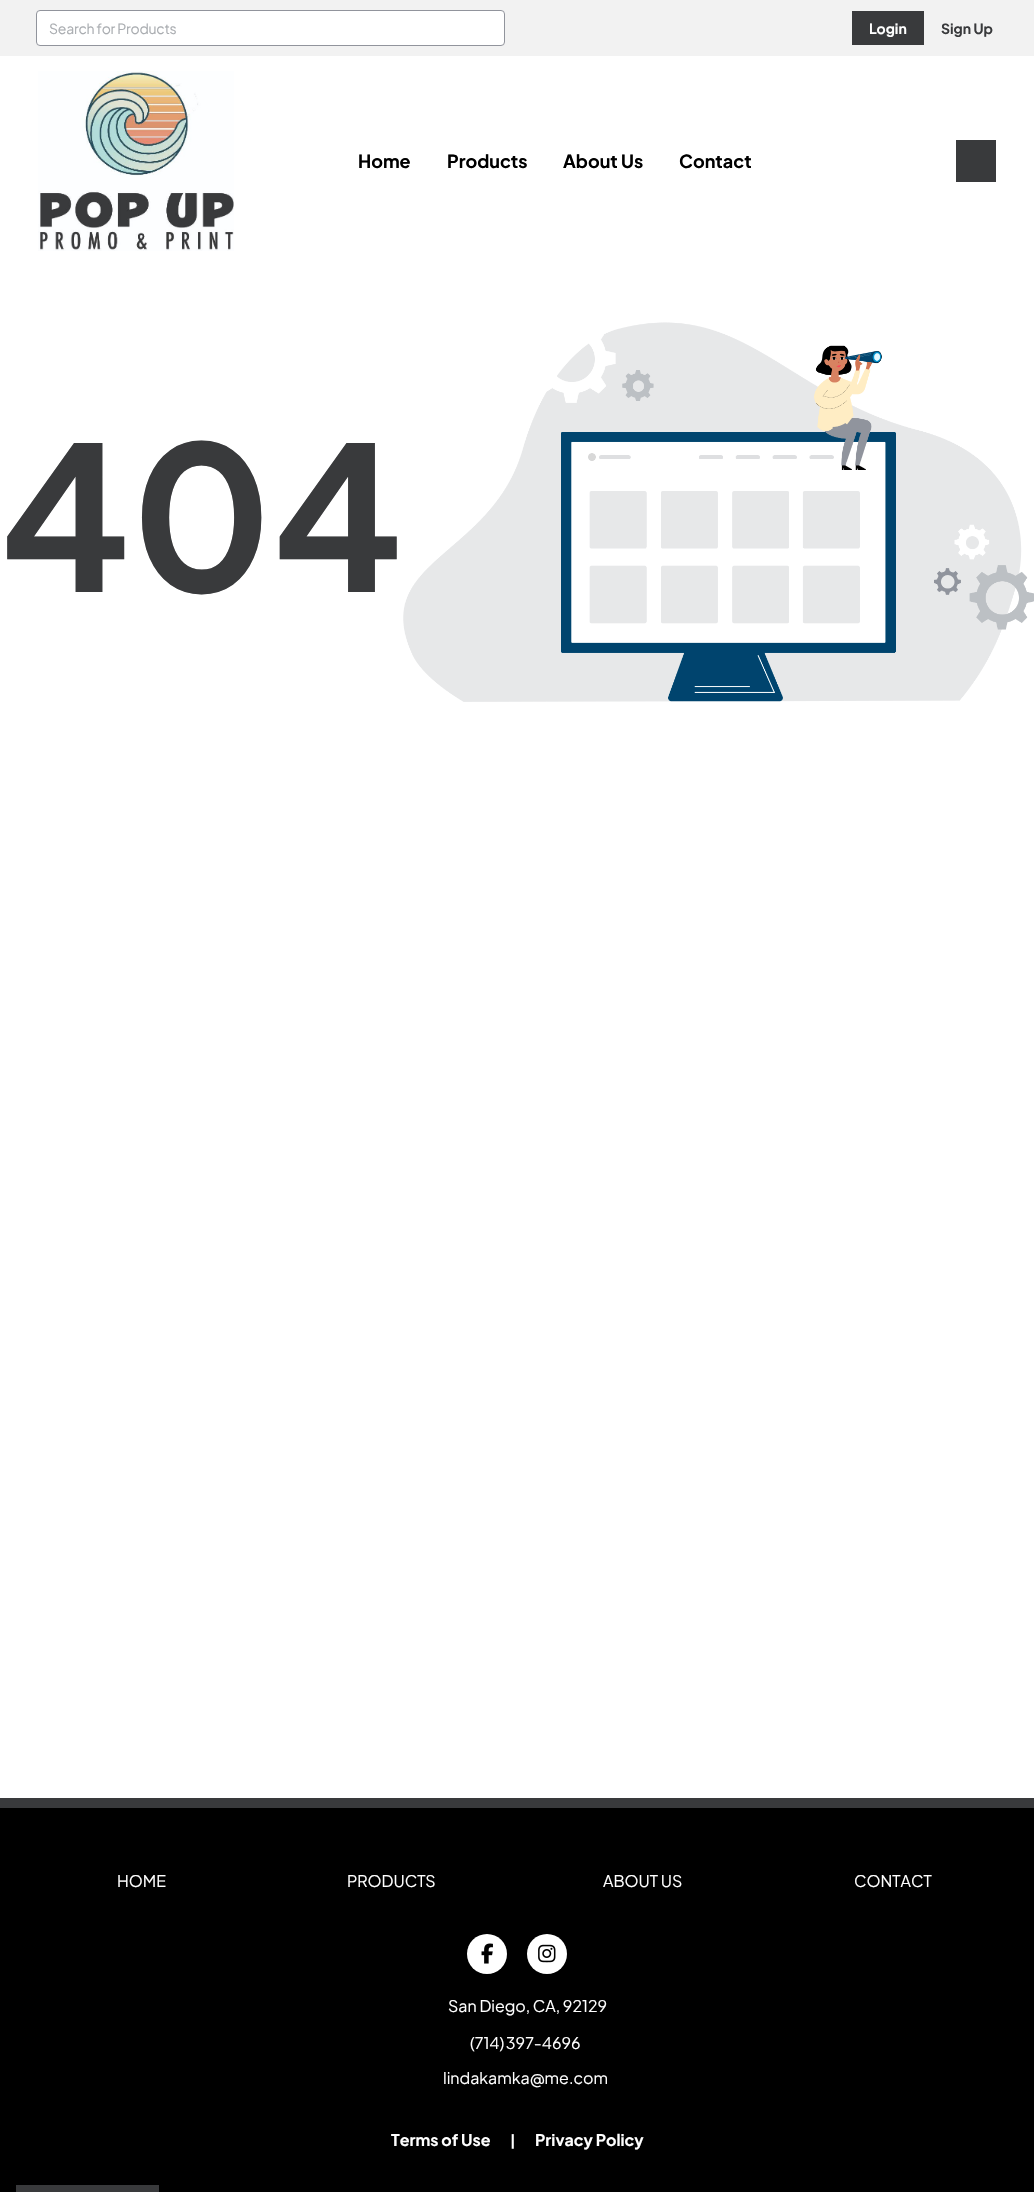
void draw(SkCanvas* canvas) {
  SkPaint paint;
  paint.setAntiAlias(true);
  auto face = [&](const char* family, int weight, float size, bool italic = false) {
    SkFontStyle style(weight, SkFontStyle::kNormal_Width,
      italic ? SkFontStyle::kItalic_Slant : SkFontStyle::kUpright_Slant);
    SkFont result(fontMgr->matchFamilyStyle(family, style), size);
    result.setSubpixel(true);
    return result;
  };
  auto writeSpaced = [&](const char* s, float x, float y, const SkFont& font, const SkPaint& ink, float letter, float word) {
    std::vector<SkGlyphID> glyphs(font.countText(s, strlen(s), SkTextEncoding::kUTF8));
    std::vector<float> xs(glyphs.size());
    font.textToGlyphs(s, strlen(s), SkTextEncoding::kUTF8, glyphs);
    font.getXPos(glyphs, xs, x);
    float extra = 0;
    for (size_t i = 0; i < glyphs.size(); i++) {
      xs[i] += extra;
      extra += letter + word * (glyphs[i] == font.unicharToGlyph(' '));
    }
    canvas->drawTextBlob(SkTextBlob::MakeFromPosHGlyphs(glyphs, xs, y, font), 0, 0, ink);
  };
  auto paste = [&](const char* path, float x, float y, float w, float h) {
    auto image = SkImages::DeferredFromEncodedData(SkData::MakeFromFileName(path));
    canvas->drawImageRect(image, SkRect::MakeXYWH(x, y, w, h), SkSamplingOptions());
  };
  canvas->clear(0xffffffff);
  paint.setColor(0xfff2f2f2);
  canvas->drawRect(SkRect::MakeXYWH(0, 0, 1034, 56), paint);
  paint.setColor(0xffffffff);
  canvas->drawRoundRect(SkRect::MakeXYWH(36.5f, 10.5f, 468, 35), 3.5f, 3.5f, paint);
  paint.setStroke(true);
  paint.setStrokeWidth(1);
  paint.setColor(0xff91949c);
  canvas->drawRoundRect(SkRect::MakeXYWH(36.5f, 10.5f, 468, 35), 3.5f, 3.5f, paint);
  paint.setStroke(false);
  paint.setColor(0xff393a3c);
  canvas->drawRect(SkRect::MakeXYWH(852, 11, 72, 34), paint);
  paste("img/1.png", 38, 71, 196, 180);
  canvas->drawRect(SkRect::MakeXYWH(956, 140, 40, 42), paint);
  paste("img/2.png", 403, 322, 631, 380);
  paint.setColor(0xff000000);
  canvas->drawRect(SkRect::MakeXYWH(0, 1808, 1034, 384), paint);
  paint.setColor(0xff393a3c);
  canvas->drawRect(SkRect::MakeXYWH(0, 1798, 1034, 10), paint);
  paint.setColor(0xffffffff);
  canvas->drawCircle(487, 1954, 20, paint);
  paste("img/3.png", 481, 1943, 12, 21);
  canvas->drawCircle(547, 1954, 20, paint);
  paste("img/4.png", 538, 1944, 18, 19);
  paint.setColor(0xff393a3c);
  canvas->drawRect(SkRect::MakeXYWH(16, 2185, 143, 7), paint);
  auto f0 = face("Plus Jakarta Sans", 400, 14);
  paint.setColor(0xffaaadb1);
  writeSpaced("Search for Products", 49, 34, f0, paint, -0.25f, 0);
  auto f1 = face("Plus Jakarta Sans", 700, 14);
  paint.setColor(0xffffffff);
  canvas->drawString("Login", 869, 34, f1, paint);
  paint.setColor(0xff393a3c);
  canvas->drawString("Sign Up", 941, 34, f1, paint);
  auto f2 = face("Plus Jakarta Sans", 700, 18);
  paint.setColor(0xff000000);
  {
    const struct { const char* s; float x, y; } items[] = {
      {"Home", 358, 168},
      {"Products", 447, 168},
      {"About Us", 563, 168},
      {"Contact", 679, 168},
    };
    for (auto [s, x, y] : items) {
      canvas->drawString(s, x, y, f2, paint);
    }
  }
  auto f3 = face("Plus Jakarta Sans", 700, 200);
  paint.setColor(0xff393a3c);
  canvas->drawString("404", 0, 592, f3, paint);
  auto f4 = face("Plus Jakarta Sans", 400, 16);
  paint.setColor(0xffffffff);
  {
    const struct { const char* s; float x, y; } items[] = {
      {"HOME", 117, 1887},
      {"PRODUCTS", 347, 1887},
      {"ABOUT US", 603, 1887},
      {"CONTACT", 854, 1887},
      {"San Diego, CA, 92129", 448, 2012},
    };
    for (auto [s, x, y] : items) {
      canvas->drawString(s, x, y, f4, paint);
    }
  }
  writeSpaced("(714) 397-4696", 470, 2049, f4, paint, 0, -1);
  canvas->drawString("lindakamka@me.com", 443, 2084, f4, paint);
  auto f5 = face("Plus Jakarta Sans", 700, 16);
  canvas->drawString("Terms of Use", 391, 2146, f5, paint);
  canvas->drawString("|", 510, 2146, f1, paint);
  canvas->drawString("Privacy Policy", 535, 2146, f5, paint);
}
